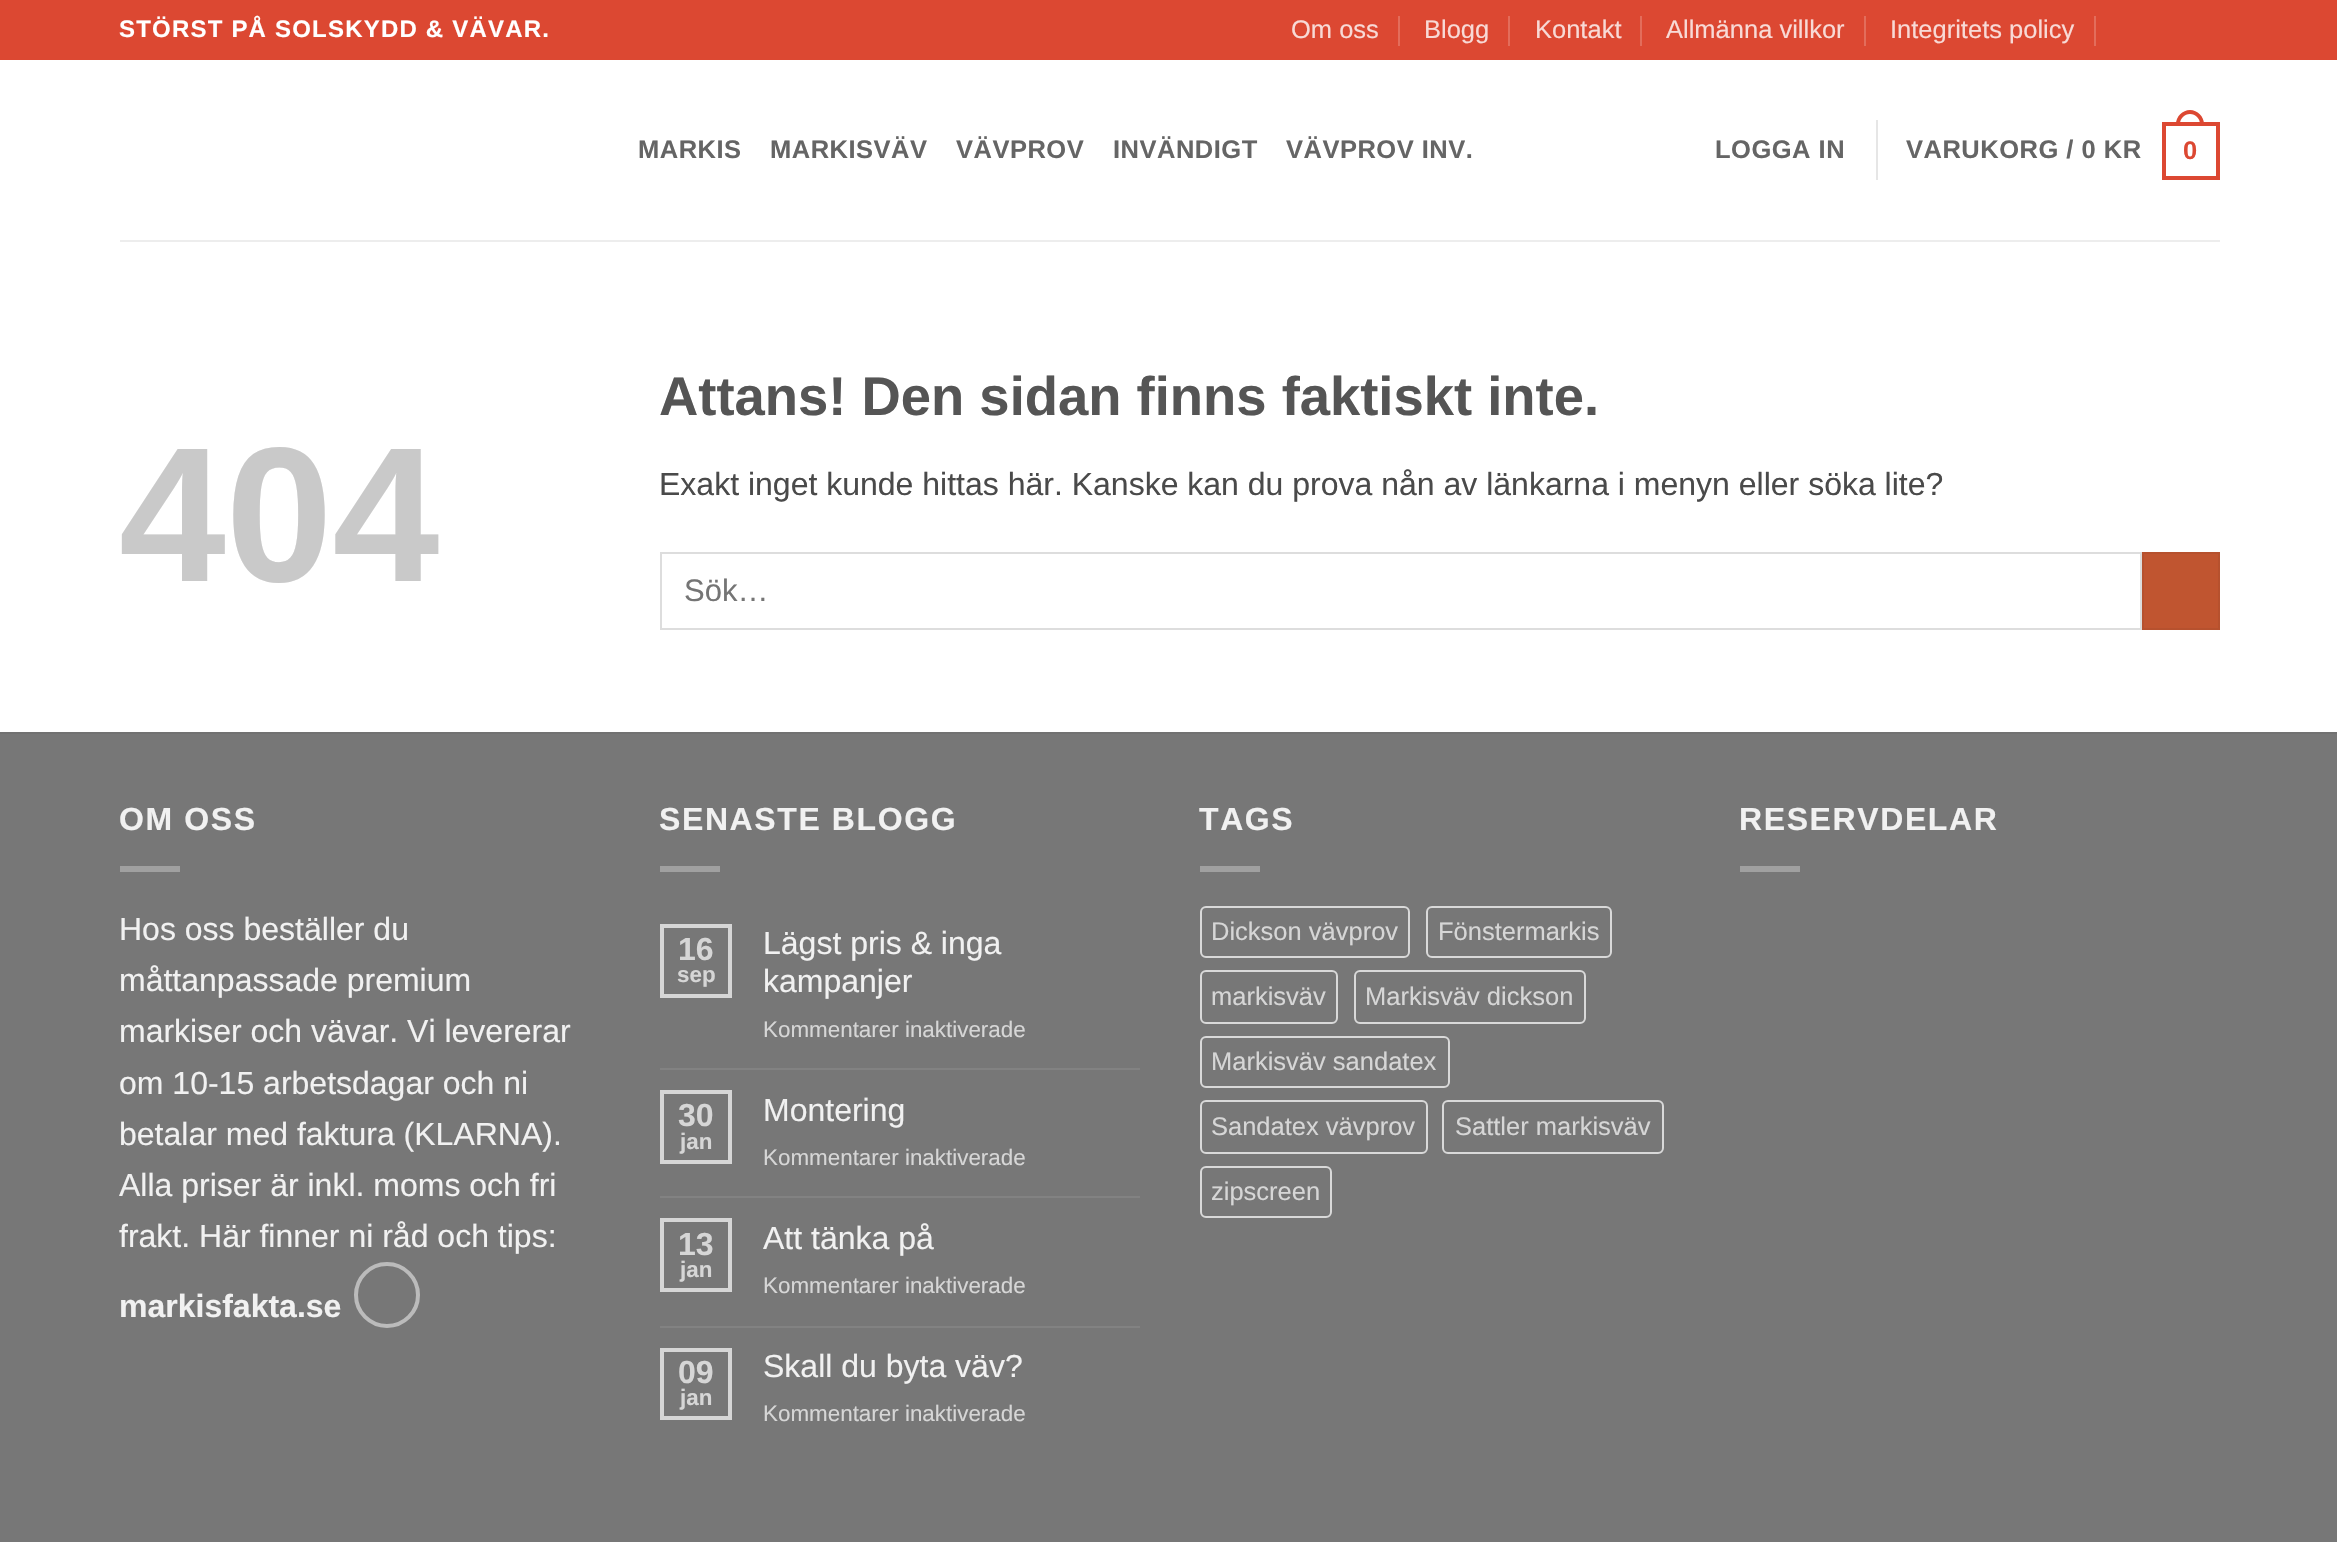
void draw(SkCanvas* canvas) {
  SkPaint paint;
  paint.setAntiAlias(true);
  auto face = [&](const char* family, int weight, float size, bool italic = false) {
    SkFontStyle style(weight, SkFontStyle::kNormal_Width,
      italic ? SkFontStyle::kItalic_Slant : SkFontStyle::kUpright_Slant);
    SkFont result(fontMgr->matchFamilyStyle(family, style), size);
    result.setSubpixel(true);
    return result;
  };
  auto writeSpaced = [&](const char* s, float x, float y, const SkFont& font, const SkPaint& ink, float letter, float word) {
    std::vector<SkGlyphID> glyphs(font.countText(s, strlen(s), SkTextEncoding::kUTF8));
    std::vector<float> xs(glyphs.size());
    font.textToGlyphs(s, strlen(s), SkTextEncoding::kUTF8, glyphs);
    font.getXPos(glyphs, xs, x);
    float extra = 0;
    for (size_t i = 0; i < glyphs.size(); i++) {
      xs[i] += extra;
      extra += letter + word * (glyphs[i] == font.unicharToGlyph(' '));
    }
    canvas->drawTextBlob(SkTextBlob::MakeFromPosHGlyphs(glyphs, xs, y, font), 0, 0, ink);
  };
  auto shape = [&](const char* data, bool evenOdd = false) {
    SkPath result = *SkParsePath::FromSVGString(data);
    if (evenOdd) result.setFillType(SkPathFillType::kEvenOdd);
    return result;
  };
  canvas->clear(0xffffffff);
  {
    const struct { float x, y, w, h; SkColor color; } items[] = {
      {0, 0, 2337, 60, 0xffdc4832},
      {1398, 16, 2, 30, 0xffe36d5b},
      {1508, 16, 2, 30, 0xffe36d5b},
      {1640, 16, 2, 30, 0xffe36d5b},
      {1864, 16, 2, 30, 0xffe36d5b},
      {2094, 16, 2, 30, 0xffe36d5b},
      {1876, 120, 2, 60, 0xffe6e6e6},
    };
    for (auto [x, y, w, h, color] : items) {
      paint.setColor(color);
      canvas->drawRect(SkRect::MakeXYWH(x, y, w, h), paint);
    }
  }
  paint.setStroke(true);
  paint.setStrokeWidth(4);
  paint.setColor(0xffdc4832);
  canvas->drawRect(SkRect::MakeXYWH(2164, 124, 54, 54), paint);
  paint.setStroke(false);
  canvas->drawPath(shape("M2190 110C2197.5 110 2204 116.5 2204 124V126H2176V124C2176 116.5 2182.5 110 2190 110ZM2190 114C2195.5 114 2200 118.5 2200 124V126H2180V124C2180 118.5 2184.5 114 2190 114Z", true), paint);
  paint.setColor(0xffededed);
  canvas->drawRect(SkRect::MakeXYWH(120, 240, 2100, 2), paint);
  paint.setStroke(true);
  paint.setStrokeWidth(2);
  paint.setColor(0xffdddddd);
  canvas->drawRect(SkRect::MakeXYWH(661, 553, 1480, 76), paint);
  paint.setStroke(false);
  paint.setColor(0xffc05530);
  canvas->drawRect(SkRect::MakeXYWH(2143, 553, 76, 76), paint);
  paint.setStroke(true);
  paint.setColor(0xffb6512e);
  canvas->drawRect(SkRect::MakeXYWH(2143, 553, 76, 76), paint);
  paint.setStroke(false);
  {
    const struct { float x, y, w, h; SkColor color; } items[] = {
      {0, 734, 2337, 808, 0xff777777},
      {0, 732, 2337, 2, 0xff717171},
      {120, 866, 60, 6, 0xffa0a0a0},
    };
    for (auto [x, y, w, h, color] : items) {
      paint.setColor(color);
      canvas->drawRect(SkRect::MakeXYWH(x, y, w, h), paint);
    }
  }
  paint.setStroke(true);
  paint.setStrokeWidth(4);
  paint.setColor(0xffbbbbbb);
  canvas->drawCircle(387, 1295, 31, paint);
  paint.setStroke(false);
  paint.setColor(0xffa0a0a0);
  canvas->drawRect(SkRect::MakeXYWH(660, 866, 60, 6), paint);
  paint.setStroke(true);
  paint.setColor(0xffd6d6d6);
  canvas->drawRect(SkRect::MakeXYWH(662, 926, 68, 70), paint);
  paint.setStroke(false);
  paint.setColor(0xff828282);
  canvas->drawRect(SkRect::MakeXYWH(660, 1068, 480, 2), paint);
  paint.setStroke(true);
  paint.setColor(0xffd6d6d6);
  canvas->drawRect(SkRect::MakeXYWH(662, 1092, 68, 70), paint);
  paint.setStroke(false);
  paint.setColor(0xff828282);
  canvas->drawRect(SkRect::MakeXYWH(660, 1196, 480, 2), paint);
  paint.setStroke(true);
  paint.setColor(0xffd6d6d6);
  canvas->drawRect(SkRect::MakeXYWH(662, 1220, 68, 70), paint);
  paint.setStroke(false);
  paint.setColor(0xff828282);
  canvas->drawRect(SkRect::MakeXYWH(660, 1326, 480, 2), paint);
  paint.setStroke(true);
  paint.setColor(0xffd6d6d6);
  canvas->drawRect(SkRect::MakeXYWH(662, 1350, 68, 68), paint);
  paint.setStroke(false);
  paint.setColor(0xffa0a0a0);
  canvas->drawRect(SkRect::MakeXYWH(1200, 866, 60, 6), paint);
  paint.setStroke(true);
  paint.setStrokeWidth(2);
  paint.setColor(0xffd9d9d9);
  canvas->drawRoundRect(SkRect::MakeXYWH(1201, 907, 208, 50), 5, 5, paint);
  canvas->drawRoundRect(SkRect::MakeXYWH(1427, 907, 184, 50), 5, 5, paint);
  canvas->drawRoundRect(SkRect::MakeXYWH(1201, 971, 136, 52), 5, 5, paint);
  canvas->drawRoundRect(SkRect::MakeXYWH(1355, 971, 230, 52), 5, 5, paint);
  canvas->drawRoundRect(SkRect::MakeXYWH(1201, 1037, 248, 50), 5, 5, paint);
  canvas->drawRoundRect(SkRect::MakeXYWH(1201, 1101, 226, 52), 5, 5, paint);
  canvas->drawRoundRect(SkRect::MakeXYWH(1443, 1101, 220, 52), 5, 5, paint);
  canvas->drawRoundRect(SkRect::MakeXYWH(1201, 1167, 130, 50), 5, 5, paint);
  paint.setStroke(false);
  paint.setColor(0xffa0a0a0);
  canvas->drawRect(SkRect::MakeXYWH(1740, 866, 60, 6), paint);
  auto f0 = face("Liberation Sans", 700, 24);
  paint.setColor(0xffffffff);
  writeSpaced("STÖRST PÅ SOLSKYDD & VÄVAR.", 119, 37, f0, paint, 1.2f, 0);
  auto f1 = face("Liberation Sans", 400, 25.5f);
  paint.setColor(0xfff8dad6);
  {
    const struct { const char* s; float x, y; } items[] = {
      {"Om oss", 1291, 38},
      {"Blogg", 1424, 38},
      {"Kontakt", 1535, 38},
      {"Allmänna villkor", 1666, 38},
      {"Integritets policy", 1890, 38},
    };
    for (auto [s, x, y] : items) {
      canvas->drawString(s, x, y, f1, paint);
    }
  }
  auto f2 = face("Liberation Sans", 700, 25.5f);
  paint.setColor(0xff656565);
  {
    const struct { const char* s; float x, y; } items[] = {
      {"MARKIS", 638, 158},
      {"MARKISVÄV", 770, 158},
      {"VÄVPROV", 956, 158},
      {"INVÄNDIGT", 1113, 158},
      {"VÄVPROV INV.", 1286, 158},
      {"LOGGA IN", 1715, 158},
      {"VARUKORG / 0 KR", 1906, 158},
    };
    for (auto [s, x, y] : items) {
      writeSpaced(s, x, y, f2, paint, 0.5f, 0);
    }
  }
  paint.setColor(0xffdc4832);
  writeSpaced("0", 2183, 159, f2, paint, 0.5f, 0);
  auto f3 = face("Liberation Sans", 700, 192);
  paint.setColor(0xffc9c9c9);
  canvas->drawString("404", 119, 581, f3, paint);
  auto f4 = face("Liberation Sans", 700, 54.4f);
  paint.setColor(0xff555555);
  canvas->drawString("Attans! Den sidan finns faktiskt inte.", 659, 415, f4, paint);
  auto f5 = face("Liberation Sans", 400, 32);
  paint.setColor(0xff4a4a4a);
  canvas->drawString("Exakt inget kunde hittas här. Kanske kan du prova nån av länkarna i menyn eller söka lite?", 659, 495, f5, paint);
  auto f6 = face("Liberation Sans", 400, 31);
  paint.setColor(0xff757575);
  canvas->drawString("Sök…", 684, 601, f6, paint);
  auto f7 = face("Liberation Sans", 700, 32);
  paint.setColor(0xfff1f1f1);
  writeSpaced("OM OSS", 119, 830, f7, paint, 1.6f, 0);
  {
    const struct { const char* s; float x, y; } items[] = {
      {"Hos oss beställer du", 119, 940},
      {"måttanpassade premium", 119, 991},
      {"markiser och vävar. Vi levererar", 119, 1042},
      {"om 10-15 arbetsdagar och ni", 119, 1094},
      {"betalar med faktura (KLARNA).", 119, 1145},
      {"Alla priser är inkl. moms och fri", 119, 1196},
      {"frakt. Här finner ni råd och tips:", 119, 1247},
    };
    for (auto [s, x, y] : items) {
      canvas->drawString(s, x, y, f5, paint);
    }
  }
  canvas->drawString("markisfakta.se", 119, 1317, f7, paint);
  writeSpaced("SENASTE BLOGG", 659, 830, f7, paint, 1.6f, 0);
  paint.setColor(0xffd6d6d6);
  canvas->drawString("16", 678, 960, f7, paint);
  auto f8 = face("Liberation Sans", 700, 22.4f);
  canvas->drawString("sep", 677, 982, f8, paint);
  paint.setColor(0xfff1f1f1);
  canvas->drawString("Lägst pris & inga", 763, 954, f5, paint);
  canvas->drawString("kampanjer", 763, 992, f5, paint);
  auto f9 = face("Liberation Sans", 400, 22.4f);
  paint.setColor(0xffd6d6d6);
  canvas->drawString("Kommentarer inaktiverade", 763, 1037, f9, paint);
  canvas->drawString("30", 678, 1126, f7, paint);
  canvas->drawString("jan", 680, 1149, f8, paint);
  paint.setColor(0xfff1f1f1);
  canvas->drawString("Montering", 763, 1121, f5, paint);
  paint.setColor(0xffd6d6d6);
  canvas->drawString("Kommentarer inaktiverade", 763, 1165, f9, paint);
  canvas->drawString("13", 678, 1255, f7, paint);
  canvas->drawString("jan", 680, 1277, f8, paint);
  paint.setColor(0xfff1f1f1);
  canvas->drawString("Att tänka på", 763, 1249, f5, paint);
  paint.setColor(0xffd6d6d6);
  canvas->drawString("Kommentarer inaktiverade", 763, 1293, f9, paint);
  canvas->drawString("09", 678, 1383, f7, paint);
  canvas->drawString("jan", 680, 1405, f8, paint);
  paint.setColor(0xfff1f1f1);
  canvas->drawString("Skall du byta väv?", 763, 1377, f5, paint);
  paint.setColor(0xffd6d6d6);
  canvas->drawString("Kommentarer inaktiverade", 763, 1421, f9, paint);
  paint.setColor(0xfff1f1f1);
  writeSpaced("TAGS", 1199, 830, f7, paint, 1.6f, 0);
  paint.setColor(0xffd6d6d6);
  {
    const struct { const char* s; float x, y; } items[] = {
      {"Dickson vävprov", 1211, 940},
      {"Fönstermarkis", 1438, 940},
      {"markisväv", 1211, 1005},
      {"Markisväv dickson", 1365, 1005},
      {"Markisväv sandatex", 1211, 1070},
      {"Sandatex vävprov", 1211, 1135},
      {"Sattler markisväv", 1455, 1135},
      {"zipscreen", 1211, 1200},
    };
    for (auto [s, x, y] : items) {
      canvas->drawString(s, x, y, f1, paint);
    }
  }
  paint.setColor(0xfff1f1f1);
  writeSpaced("RESERVDELAR", 1739, 830, f7, paint, 1.6f, 0);
}
